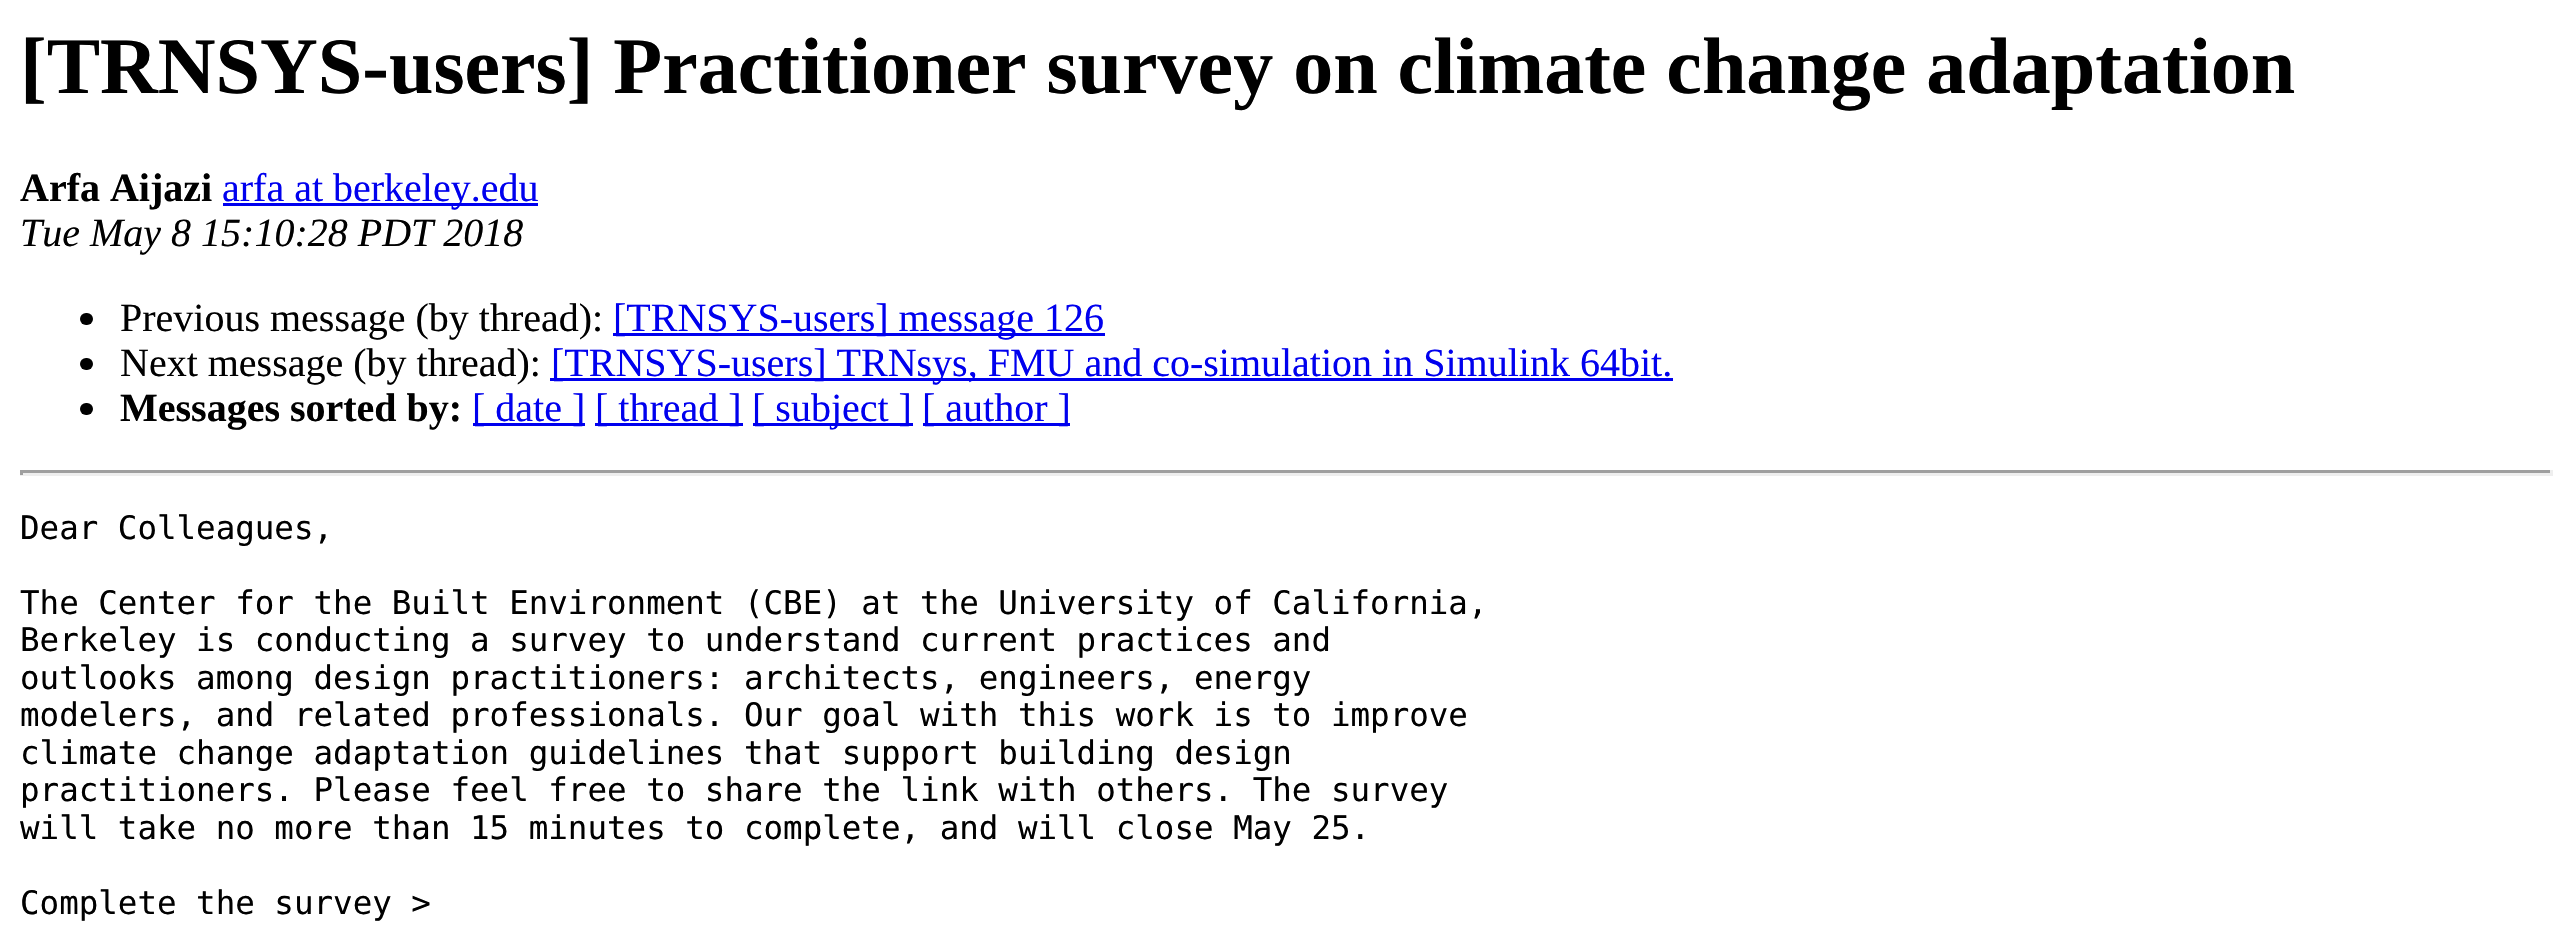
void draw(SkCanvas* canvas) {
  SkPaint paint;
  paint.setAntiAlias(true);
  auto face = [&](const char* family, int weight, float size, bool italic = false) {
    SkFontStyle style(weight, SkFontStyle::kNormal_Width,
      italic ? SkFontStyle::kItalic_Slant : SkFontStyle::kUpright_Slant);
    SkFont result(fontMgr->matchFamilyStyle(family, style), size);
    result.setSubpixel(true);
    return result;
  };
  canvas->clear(0xffffffff);
  paint.setColor(0xff0000ee);
  canvas->drawRect(SkRect::MakeXYWH(223, 203, 315, 3), paint);
  paint.setColor(0xff000000);
  canvas->drawRoundRect(SkRect::MakeXYWH(80, 313, 13, 12), 6, 6, paint);
  paint.setColor(0xff0000ee);
  canvas->drawRect(SkRect::MakeXYWH(613, 333, 492, 3), paint);
  paint.setColor(0xff000000);
  canvas->drawRoundRect(SkRect::MakeXYWH(80, 358, 13, 12), 6, 6, paint);
  paint.setColor(0xff0000ee);
  canvas->drawRect(SkRect::MakeXYWH(550, 378, 1123, 3), paint);
  paint.setColor(0xff000000);
  canvas->drawRoundRect(SkRect::MakeXYWH(80, 403, 13, 12), 6, 6, paint);
  {
    const struct { float x, y, w, h; SkColor color; } items[] = {
      {473, 423, 112, 3, 0xff0000ee},
      {595, 423, 148, 3, 0xff0000ee},
      {753, 423, 160, 3, 0xff0000ee},
      {923, 423, 147, 3, 0xff0000ee},
      {20, 470, 2533, 3, 0xff9f9f9f},
      {2550, 470, 3, 5, 0xffeeeeee},
      {20, 473, 2533, 3, 0xffeeeeee},
      {20, 470, 3, 5, 0xff9f9f9f},
    };
    for (auto [x, y, w, h, color] : items) {
      paint.setColor(color);
      canvas->drawRect(SkRect::MakeXYWH(x, y, w, h), paint);
    }
  }
  auto f0 = face("Liberation Serif", 700, 80);
  paint.setColor(0xff000000);
  canvas->drawString("[TRNSYS-users] Practitioner survey on climate change adaptation", 20, 93, f0, paint);
  auto f1 = face("Liberation Serif", 700, 40);
  canvas->drawString("Arfa Aijazi", 20, 201, f1, paint);
  auto f2 = face("Liberation Serif", 400, 40);
  paint.setColor(0xff0000ee);
  canvas->drawString("arfa at berkeley.edu", 222, 201, f2, paint);
  auto f3 = face("Liberation Serif", 400, 40, true);
  paint.setColor(0xff000000);
  canvas->drawString("Tue May 8 15:10:28 PDT 2018", 20, 246, f3, paint);
  canvas->drawString("Previous message (by thread):", 120, 331, f2, paint);
  paint.setColor(0xff0000ee);
  canvas->drawString("[TRNSYS-users] message 126", 613, 331, f2, paint);
  paint.setColor(0xff000000);
  canvas->drawString("Next message (by thread):", 120, 376, f2, paint);
  paint.setColor(0xff0000ee);
  canvas->drawString("[TRNSYS-users] TRNsys, FMU and co-simulation in Simulink 64bit.", 551, 376, f2, paint);
  paint.setColor(0xff000000);
  canvas->drawString("Messages sorted by:", 120, 421, f1, paint);
  paint.setColor(0xff0000ee);
  {
    const struct { const char* s; float x, y; } items[] = {
      {"[ date ]", 472, 421},
      {"[ thread ]", 595, 421},
      {"[ subject ]", 752, 421},
      {"[ author ]", 922, 421},
    };
    for (auto [s, x, y] : items) {
      canvas->drawString(s, x, y, f2, paint);
    }
  }
  auto f4 = face("DejaVu Sans Mono", 400, 32.5f);
  paint.setColor(0xff000000);
  {
    const struct { const char* s; float x, y; } items[] = {
      {"Dear Colleagues,", 20, 539},
      {"The Center for the Built Environment (CBE) at the University of California,", 20, 614},
      {"Berkeley is conducting a survey to understand current practices and", 20, 651},
      {"outlooks among design practitioners: architects, engineers, energy", 20, 689},
      {"modelers, and related professionals. Our goal with this work is to improve", 20, 726},
      {"climate change adaptation guidelines that support building design", 20, 764},
      {"practitioners. Please feel free to share the link with others. The survey", 20, 801},
      {"will take no more than 15 minutes to complete, and will close May 25.", 20, 839},
      {"Complete the survey >", 20, 914},
    };
    for (auto [s, x, y] : items) {
      canvas->drawString(s, x, y, f4, paint);
    }
  }
}
